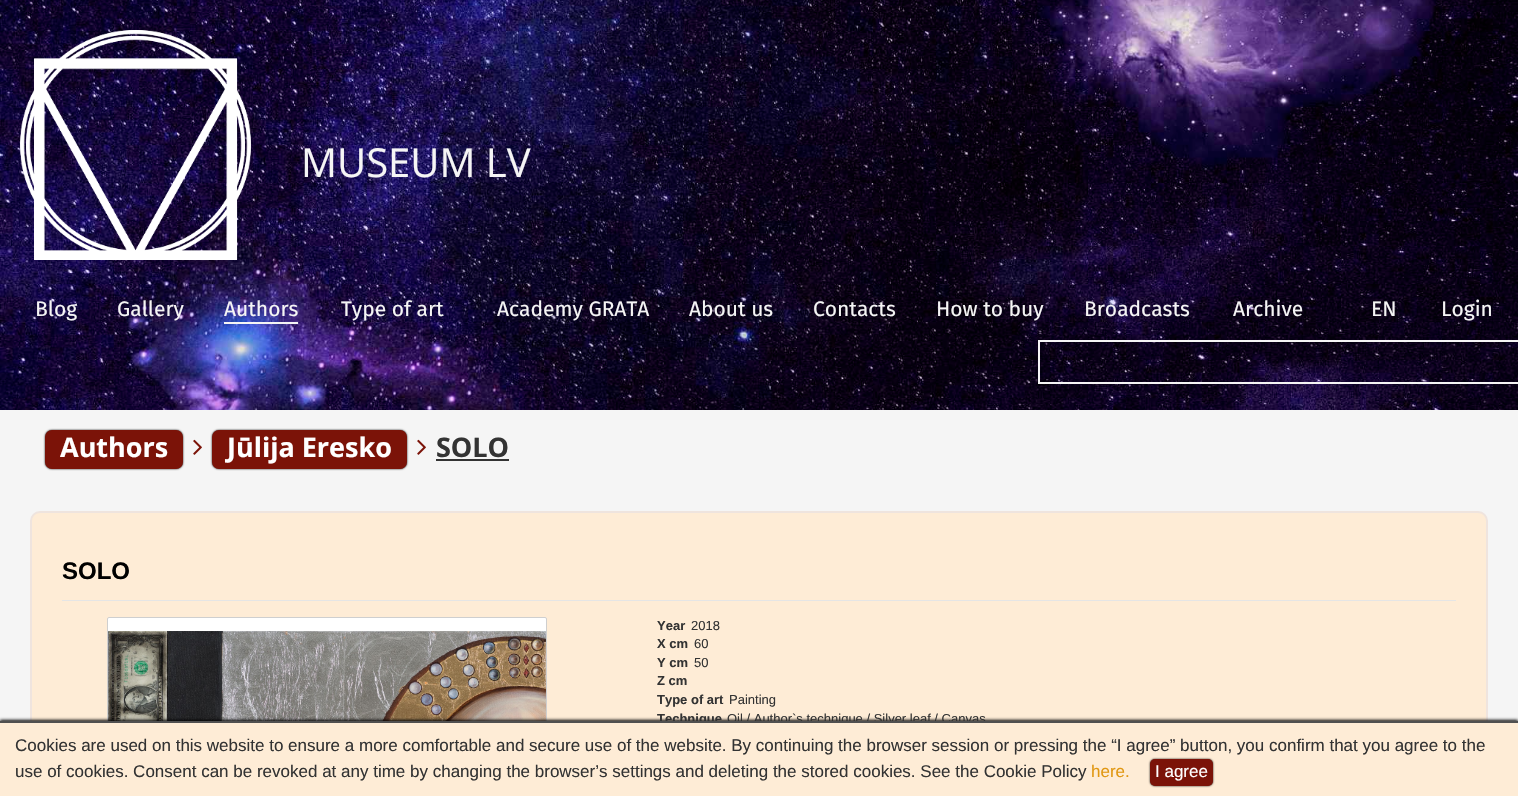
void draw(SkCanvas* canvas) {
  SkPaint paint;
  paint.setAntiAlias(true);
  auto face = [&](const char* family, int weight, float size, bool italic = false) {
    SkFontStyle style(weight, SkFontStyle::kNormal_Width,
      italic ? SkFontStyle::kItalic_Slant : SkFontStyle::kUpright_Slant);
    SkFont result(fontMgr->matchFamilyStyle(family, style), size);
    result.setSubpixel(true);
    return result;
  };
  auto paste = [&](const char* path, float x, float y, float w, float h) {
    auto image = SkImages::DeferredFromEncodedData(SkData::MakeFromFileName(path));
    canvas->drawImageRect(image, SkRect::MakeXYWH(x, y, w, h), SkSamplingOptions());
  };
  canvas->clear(0xfff5f5f5);
  paste("img/1.png", 0, 0, 1518, 410);
  paste("img/2.png", 20, 30, 231, 230);
  paint.setColor(0xfff5f5f5);
  canvas->drawRect(SkRect::MakeXYWH(224, 322, 74, 2), paint);
  paint.setStroke(true);
  paint.setStrokeWidth(2);
  canvas->drawRect(SkRect::MakeXYWH(1039, 341, 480, 42), paint);
  paint.setStroke(false);
  paint.setColor(0xff000000);
  paint.setMaskFilter(SkMaskFilter::MakeBlur(kNormal_SkBlurStyle, 1));
  canvas->drawRoundRect(SkRect::MakeXYWH(45, 430, 138, 39), 7, 7, paint);
  paint.setMaskFilter(nullptr);
  paint.setColor(0xff7b1308);
  canvas->drawRoundRect(SkRect::MakeXYWH(45, 430, 138, 39), 7, 7, paint);
  paste("img/3.png", 193, 439, 9, 16);
  paint.setColor(0xff000000);
  paint.setMaskFilter(SkMaskFilter::MakeBlur(kNormal_SkBlurStyle, 1));
  canvas->drawRoundRect(SkRect::MakeXYWH(212, 430, 195, 39), 7, 7, paint);
  paint.setMaskFilter(nullptr);
  paint.setColor(0xff7b1308);
  canvas->drawRoundRect(SkRect::MakeXYWH(212, 430, 195, 39), 7, 7, paint);
  paste("img/3.png", 417, 439, 9, 16);
  paint.setColor(0xff333333);
  canvas->drawRect(SkRect::MakeXYWH(436, 459, 73, 2), paint);
  paint.setColor(0xfffeecd6);
  canvas->drawRoundRect(SkRect::MakeXYWH(31, 512, 1456, 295), 9, 9, paint);
  paint.setStroke(true);
  paint.setColor(0xffefe4de);
  canvas->drawRoundRect(SkRect::MakeXYWH(31, 512, 1456, 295), 9, 9, paint);
  paint.setStroke(false);
  paint.setColor(0xffe5e5e5);
  canvas->drawRect(SkRect::MakeXYWH(62, 600, 1394, 1), paint);
  paint.setColor(0xffffffff);
  canvas->drawRoundRect(SkRect::MakeXYWH(107.5f, 617.5f, 439, 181), 1.5f, 1.5f, paint);
  paint.setStroke(true);
  paint.setStrokeWidth(1);
  paint.setColor(0xffcfcfcf);
  canvas->drawRoundRect(SkRect::MakeXYWH(107.5f, 617.5f, 439, 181), 1.5f, 1.5f, paint);
  paste("img/4.png", 108, 631, 438, 90);
  paint.setStroke(false);
  paint.setColor(0xff000000);
  paint.setMaskFilter(SkMaskFilter::MakeBlur(kNormal_SkBlurStyle, 1.5f));
  canvas->drawRect(SkRect::MakeXYWH(0, 720, 1518, 75), paint);
  paint.setMaskFilter(nullptr);
  auto f0 = face("Open Sans", 400, 40);
  paint.setColor(0xfff5f5f5);
  canvas->drawString("MUSEUM LV", 301, 177, f0, paint);
  auto f1 = face("Fira Sans", 400, 21);
  {
    const struct { const char* s; float x, y; } items[] = {
      {"Blog", 35, 316},
      {"Gallery", 117, 316},
      {"Authors", 224, 316},
      {"Type of art", 341, 316},
      {"Academy GRATA", 497, 316},
      {"About us", 689, 316},
      {"Сontacts", 813, 316},
      {"How to buy", 936, 316},
      {"Broadcasts", 1084, 316},
      {"Archive", 1233, 316},
      {"EN", 1371, 316},
      {"Login", 1441, 316},
    };
    for (auto [s, x, y] : items) {
      canvas->drawString(s, x, y, f1, paint);
    }
  }
  auto f2 = face("Open Sans", 700, 27);
  paint.setColor(0xffffffff);
  canvas->drawString("Authors", 60, 457, f2, paint);
  canvas->drawString("Jūlija Eresko", 227, 457, f2, paint);
  paint.setColor(0xff333333);
  canvas->drawString("SOLO", 436, 457, f2, paint);
  auto f3 = face("Liberation Sans", 700, 24);
  paint.setColor(0xff000000);
  canvas->drawString("SOLO", 62, 579, f3, paint);
  auto f4 = face("Liberation Sans", 700, 13);
  paint.setColor(0xff333333);
  canvas->drawString("Year", 657, 630, f4, paint);
  auto f5 = face("Liberation Sans", 400, 13);
  canvas->drawString("2018", 691, 630, f5, paint);
  canvas->drawString("X cm", 657, 648, f4, paint);
  canvas->drawString("60", 694, 648, f5, paint);
  canvas->drawString("Y cm", 657, 667, f4, paint);
  canvas->drawString("50", 694, 667, f5, paint);
  canvas->drawString("Z cm", 657, 685, f4, paint);
  canvas->drawString("Type of art", 657, 704, f4, paint);
  canvas->drawString("Painting", 729, 704, f5, paint);
  canvas->drawString("Technique", 657, 723, f4, paint);
  canvas->drawString("Oil / Author`s technique / Silver leaf / Canvas", 727, 723, f5, paint);
  paint.setColor(0xfffeecd6);
  canvas->drawRect(SkRect::MakeXYWH(0, 723, 1518, 73), paint);
  paint.setColor(0xff505050);
  canvas->drawRect(SkRect::MakeXYWH(0, 721, 1518, 2), paint);
  auto f6 = face("Liberation Sans", 400, 17);
  paint.setColor(0xff333333);
  canvas->drawString("Cookies are used on this website to ensure a more comfortable and secure use of the website. By continuing the browser session or pressing the “I agree” button, you confirm that you agree to the", 15, 751, f6, paint);
  canvas->drawString("use of cookies. Consent can be revoked at any time by changing the browser’s settings and deleting the stored cookies. See the Cookie Policy", 15, 777, f6, paint);
  paint.setColor(0xffe19813);
  canvas->drawString("here.", 1091, 777, f6, paint);
  paint.setColor(0xff000000);
  paint.setMaskFilter(SkMaskFilter::MakeBlur(kNormal_SkBlurStyle, 1));
  canvas->drawRoundRect(SkRect::MakeXYWH(1150, 759, 63, 27), 5, 5, paint);
  paint.setMaskFilter(nullptr);
  paint.setColor(0xff7b1308);
  canvas->drawRoundRect(SkRect::MakeXYWH(1150, 759, 63, 27), 5, 5, paint);
  paint.setColor(0xffffffff);
  canvas->drawString("I agree", 1155, 777, f6, paint);
}
